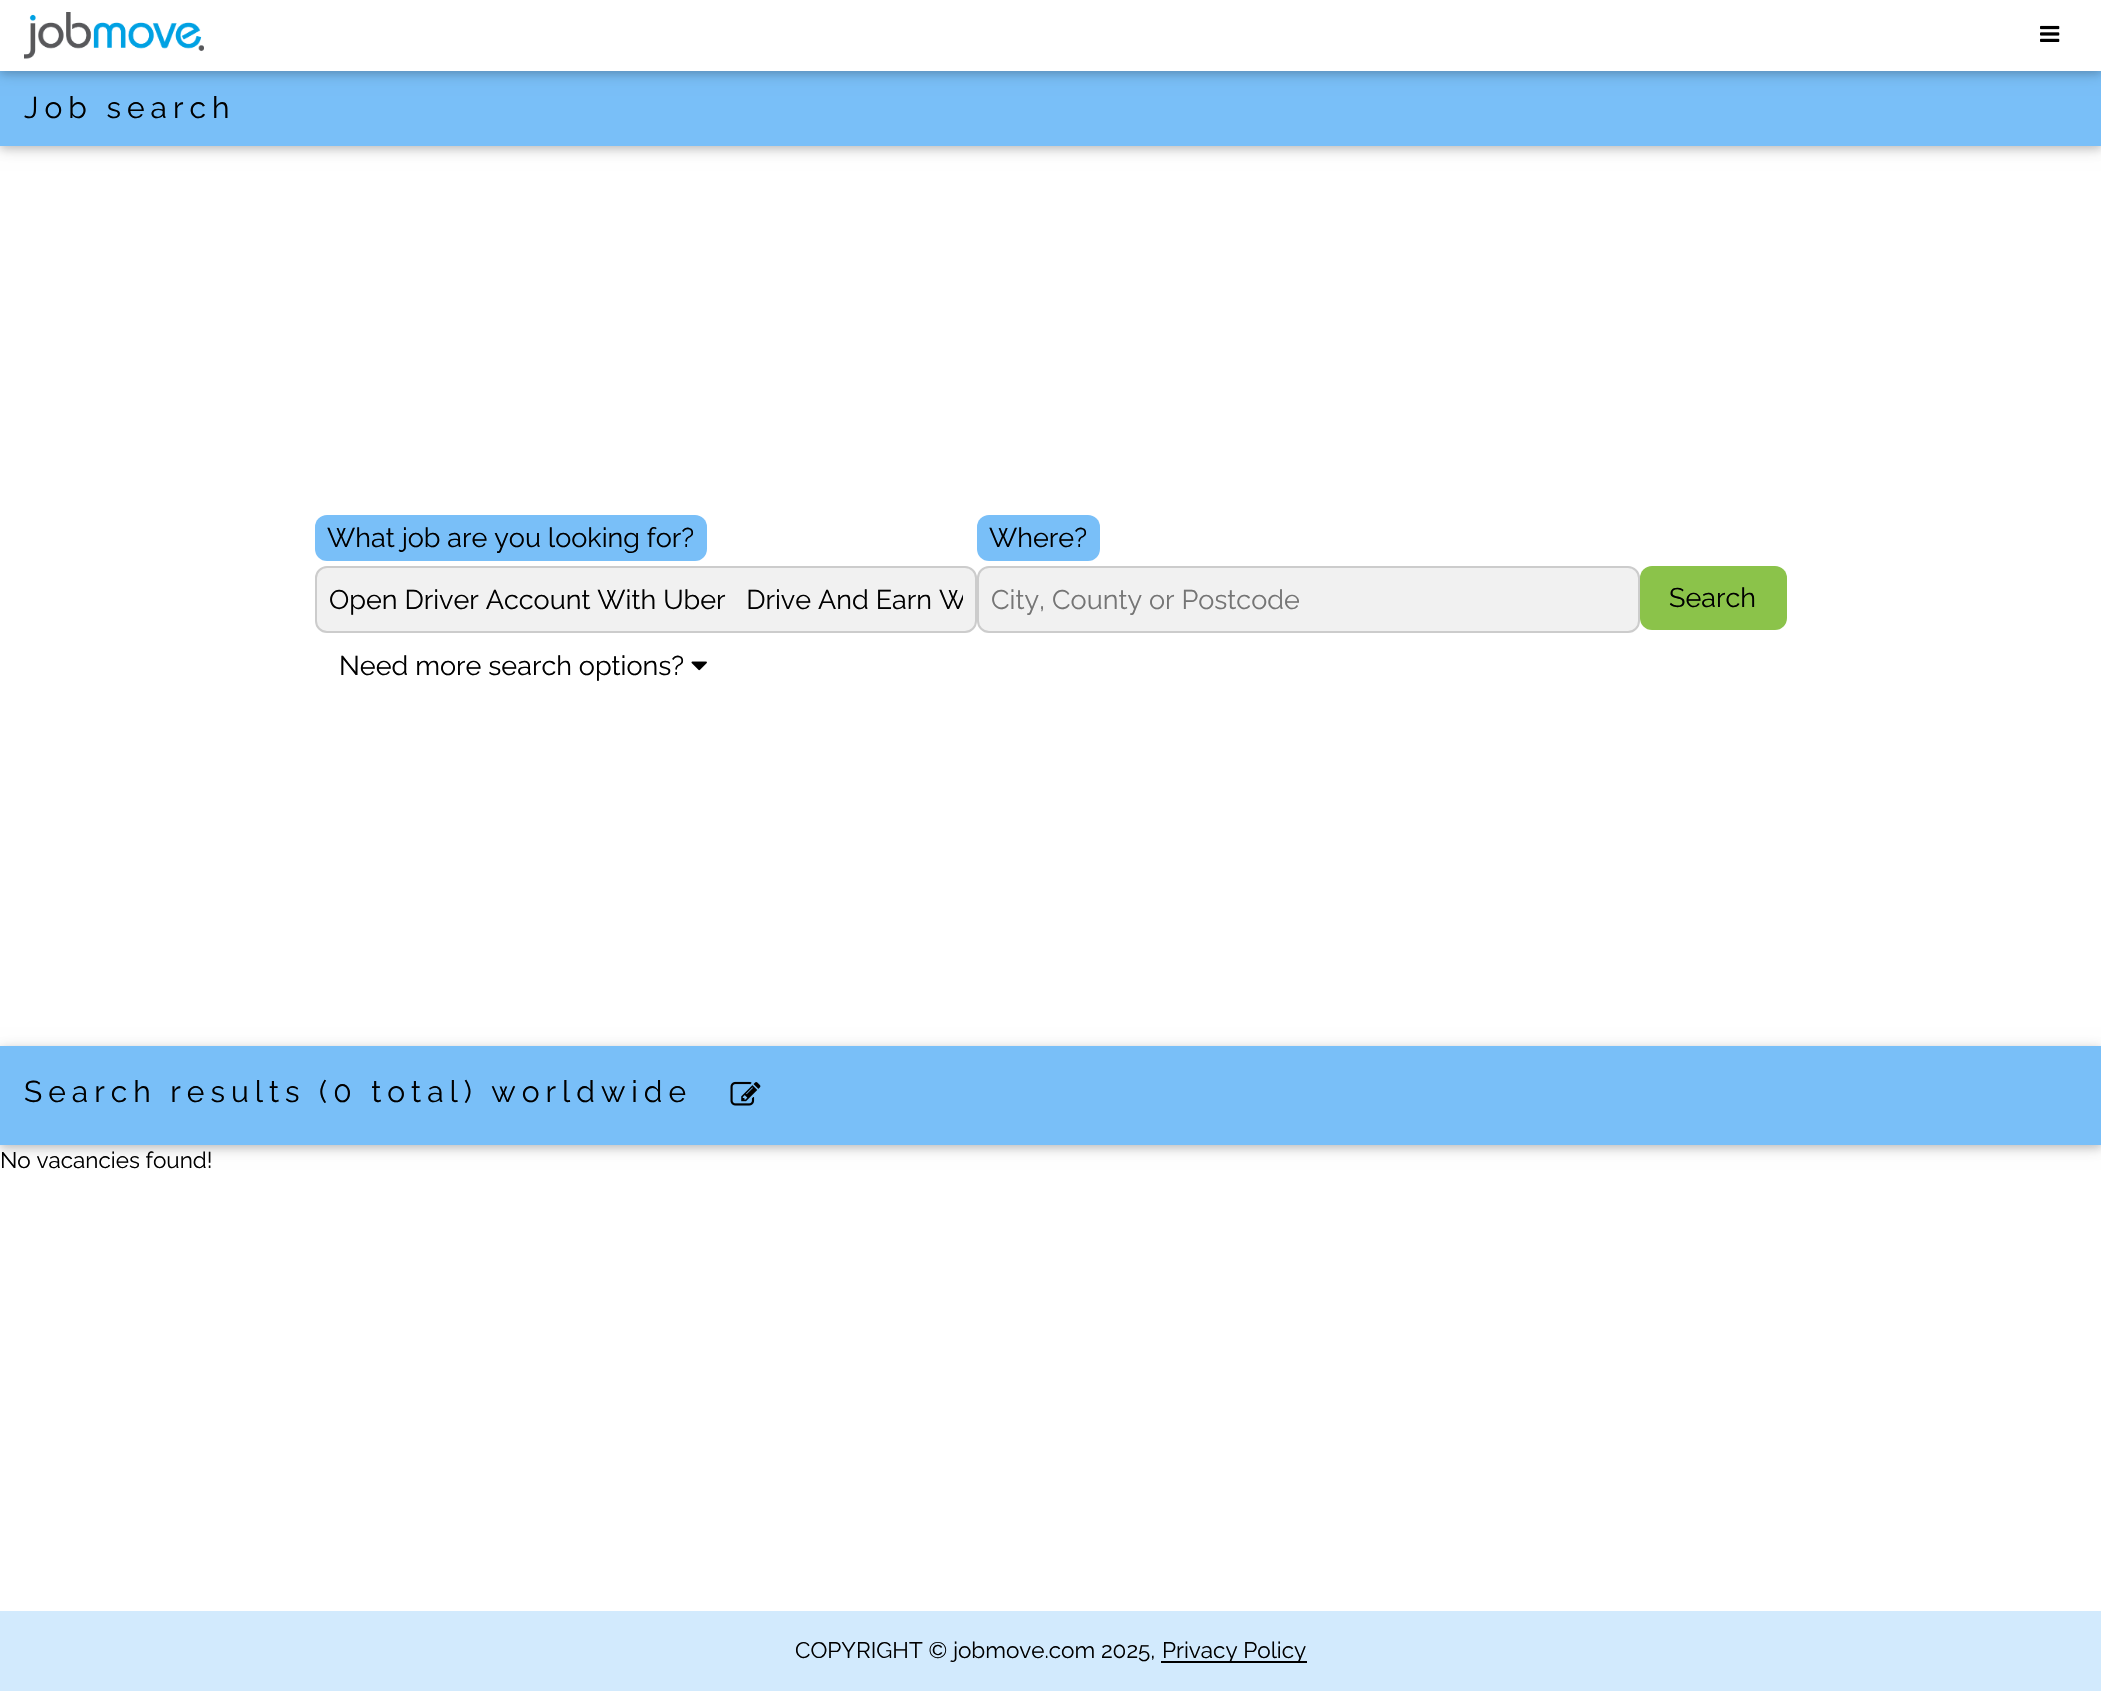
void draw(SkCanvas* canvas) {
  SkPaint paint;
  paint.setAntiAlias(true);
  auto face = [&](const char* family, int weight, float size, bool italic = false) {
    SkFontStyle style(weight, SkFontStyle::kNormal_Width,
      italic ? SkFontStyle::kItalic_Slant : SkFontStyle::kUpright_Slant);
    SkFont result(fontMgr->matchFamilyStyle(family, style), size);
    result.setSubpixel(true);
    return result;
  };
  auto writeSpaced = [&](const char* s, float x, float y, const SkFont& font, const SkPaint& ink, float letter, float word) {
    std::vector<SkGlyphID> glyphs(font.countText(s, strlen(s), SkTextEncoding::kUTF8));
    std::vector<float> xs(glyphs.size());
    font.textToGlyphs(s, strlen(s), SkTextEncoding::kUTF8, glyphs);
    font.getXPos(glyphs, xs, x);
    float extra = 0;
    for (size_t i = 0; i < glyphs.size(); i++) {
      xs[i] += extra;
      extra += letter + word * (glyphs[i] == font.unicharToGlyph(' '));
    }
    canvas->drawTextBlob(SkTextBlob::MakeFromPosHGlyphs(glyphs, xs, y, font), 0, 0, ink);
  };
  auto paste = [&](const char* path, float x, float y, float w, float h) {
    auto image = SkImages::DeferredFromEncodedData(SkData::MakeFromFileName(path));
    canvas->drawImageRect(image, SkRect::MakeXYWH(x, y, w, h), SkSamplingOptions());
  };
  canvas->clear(0xffffffff);
  paint.setColor(0x1f000000);
  paint.setMaskFilter(SkMaskFilter::MakeBlur(kNormal_SkBlurStyle, 7.5f));
  canvas->drawRect(SkRect::MakeXYWH(0, 74, 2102, 75), paint);
  paint.setMaskFilter(nullptr);
  paint.setColor(0x29000000);
  paint.setMaskFilter(SkMaskFilter::MakeBlur(kNormal_SkBlurStyle, 4));
  canvas->drawRect(SkRect::MakeXYWH(0, 74, 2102, 75), paint);
  paint.setMaskFilter(nullptr);
  paint.setColor(0xff79bff8);
  canvas->drawRect(SkRect::MakeXYWH(0, 71, 2101, 75), paint);
  paint.setColor(0x1f000000);
  paint.setMaskFilter(SkMaskFilter::MakeBlur(kNormal_SkBlurStyle, 7.5f));
  canvas->drawRect(SkRect::MakeXYWH(0, 3, 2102, 71), paint);
  paint.setMaskFilter(nullptr);
  paint.setColor(0x29000000);
  paint.setMaskFilter(SkMaskFilter::MakeBlur(kNormal_SkBlurStyle, 4));
  canvas->drawRect(SkRect::MakeXYWH(0, 3, 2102, 71), paint);
  paint.setMaskFilter(nullptr);
  paint.setColor(0xffffffff);
  canvas->drawRect(SkRect::MakeXYWH(0, 0, 2101, 71), paint);
  paste("img/1.png", 24, 12, 180, 47);
  paste("img/2.png", 2040, 25, 20, 17);
  paint.setColor(0xff79bff8);
  canvas->drawRoundRect(SkRect::MakeXYWH(315, 515, 392, 46), 12, 12, paint);
  paint.setColor(0xfff1f1f1);
  canvas->drawRoundRect(SkRect::MakeXYWH(316, 567, 660, 65), 11, 11, paint);
  paint.setStroke(true);
  paint.setStrokeWidth(2);
  paint.setColor(0xffcccccc);
  canvas->drawRoundRect(SkRect::MakeXYWH(316, 567, 660, 65), 11, 11, paint);
  paint.setStroke(false);
  paint.setColor(0xff79bff8);
  canvas->drawRoundRect(SkRect::MakeXYWH(977, 515, 123, 46), 12, 12, paint);
  paint.setColor(0xfff1f1f1);
  canvas->drawRoundRect(SkRect::MakeXYWH(978, 567, 661, 65), 11, 11, paint);
  paint.setStroke(true);
  paint.setColor(0xffcccccc);
  canvas->drawRoundRect(SkRect::MakeXYWH(978, 567, 661, 65), 11, 11, paint);
  paint.setStroke(false);
  paint.setColor(0xff8bc34a);
  canvas->drawRoundRect(SkRect::MakeXYWH(1640, 566, 147, 64), 12, 12, paint);
  paste("img/3.png", 691, 661, 16, 10);
  paint.setColor(0x1f000000);
  paint.setMaskFilter(SkMaskFilter::MakeBlur(kNormal_SkBlurStyle, 7.5f));
  canvas->drawRect(SkRect::MakeXYWH(0, 1049, 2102, 99), paint);
  paint.setMaskFilter(nullptr);
  paint.setColor(0x29000000);
  paint.setMaskFilter(SkMaskFilter::MakeBlur(kNormal_SkBlurStyle, 4));
  canvas->drawRect(SkRect::MakeXYWH(0, 1049, 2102, 99), paint);
  paint.setMaskFilter(nullptr);
  paint.setColor(0xff79bff8);
  canvas->drawRect(SkRect::MakeXYWH(0, 1046, 2101, 99), paint);
  paste("img/4.png", 730, 1081, 31, 25);
  paint.setColor(0xffd2eafd);
  canvas->drawRect(SkRect::MakeXYWH(0, 1611, 2101, 80), paint);
  paint.setColor(0xff000000);
  canvas->drawRect(SkRect::MakeXYWH(1161, 1661, 146, 2), paint);
  auto f0 = face("Raleway", 100, 30);
  writeSpaced("Job search", 24, 118, f0, paint, 6, 0);
  auto f1 = face("Raleway", 100, 27);
  canvas->drawString("What job are you looking for?", 327, 547, f1, paint);
  canvas->save();
  canvas->clipRect(SkRect::MakeXYWH(329, 579, 634, 41));
  canvas->drawString("Open Driver Account With Uber   Drive And Earn W", 329, 609, f1, paint);
  canvas->restore();
  canvas->drawString("Where?", 989, 547, f1, paint);
  paint.setColor(0xff757575);
  canvas->drawString("City, County or Postcode", 991, 609, f1, paint);
  paint.setColor(0xff000000);
  canvas->drawString("Search", 1669, 607, f1, paint);
  canvas->drawString("Need more search options?", 339, 675, f1, paint);
  writeSpaced("Search results (0 total) worldwide", 24, 1102, f0, paint, 6, 0);
  auto f2 = face("Raleway", 100, 22.5f);
  {
    const struct { const char* s; float x, y; } items[] = {
      {"No vacancies found!", 0, 1168},
      {"COPYRIGHT © jobmove.com 2025,", 795, 1658},
      {"Privacy Policy", 1162, 1658},
    };
    for (auto [s, x, y] : items) {
      canvas->drawString(s, x, y, f2, paint);
    }
  }
}
